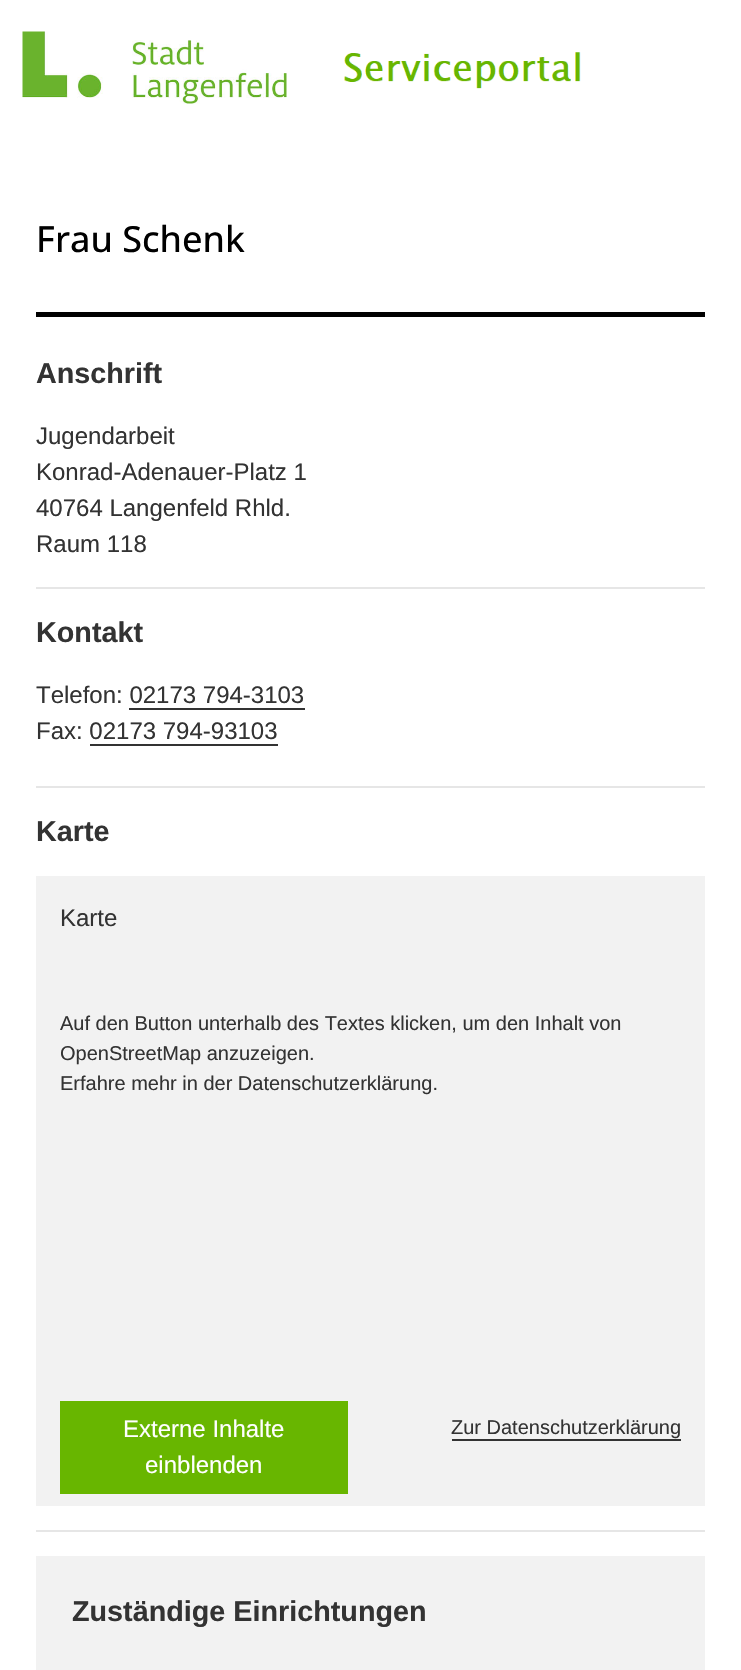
void draw(SkCanvas* canvas) {
  SkPaint paint;
  paint.setAntiAlias(true);
  auto face = [&](const char* family, int weight, float size, bool italic = false) {
    SkFontStyle style(weight, SkFontStyle::kNormal_Width,
      italic ? SkFontStyle::kItalic_Slant : SkFontStyle::kUpright_Slant);
    SkFont result(fontMgr->matchFamilyStyle(family, style), size);
    result.setSubpixel(true);
    return result;
  };
  auto paste = [&](const char* path, float x, float y, float w, float h) {
    auto image = SkImages::DeferredFromEncodedData(SkData::MakeFromFileName(path));
    canvas->drawImageRect(image, SkRect::MakeXYWH(x, y, w, h), SkSamplingOptions());
  };
  canvas->clear(0xffffffff);
  paste("img/1.png", 22, 31, 265, 73);
  paste("img/2.png", 344, 52, 237, 37);
  {
    const struct { float x, y, w, h; SkColor color; } items[] = {
      {36, 312, 669, 5, 0xff000000},
      {36, 587, 669, 2, 0xffe6e6e6},
      {129, 708, 176, 2, 0xff333333},
      {90, 744, 188, 2, 0xff333333},
      {36, 786, 669, 2, 0xffe6e6e6},
      {36, 876, 669, 630, 0xfff2f2f2},
      {60, 1401, 288, 93, 0xff68b600},
      {452, 1439, 229, 2, 0xff333333},
      {36, 1530, 669, 2, 0xffe6e6e6},
      {36, 1556, 669, 114, 0xfff2f2f2},
    };
    for (auto [x, y, w, h, color] : items) {
      paint.setColor(color);
      canvas->drawRect(SkRect::MakeXYWH(x, y, w, h), paint);
    }
  }
  auto f0 = face("Open Sans", 500, 36);
  paint.setColor(0xff000000);
  canvas->drawString("Frau Schenk", 36, 252, f0, paint);
  auto f1 = face("Liberation Sans", 700, 28.75f);
  paint.setColor(0xff333333);
  canvas->drawString("Anschrift", 36, 383, f1, paint);
  auto f2 = face("Liberation Sans", 400, 24);
  {
    const struct { const char* s; float x, y; } items[] = {
      {"Jugendarbeit", 36, 444},
      {"Konrad-Adenauer-Platz 1", 36, 480},
      {"40764 Langenfeld Rhld.", 36, 516},
      {"Raum 118", 36, 552},
    };
    for (auto [s, x, y] : items) {
      canvas->drawString(s, x, y, f2, paint);
    }
  }
  canvas->drawString("Kontakt", 36, 642, f1, paint);
  canvas->drawString("Telefon: 02173 794-3103", 36, 703, f2, paint);
  canvas->drawString("Fax: 02173 794-93103", 36, 739, f2, paint);
  canvas->drawString("Karte", 36, 841, f1, paint);
  canvas->drawString("Karte", 60, 926, f2, paint);
  auto f3 = face("Liberation Sans", 400, 20);
  {
    const struct { const char* s; float x, y; } items[] = {
      {"Auf den Button unterhalb des Textes klicken, um den Inhalt von", 60, 1030},
      {"OpenStreetMap anzuzeigen.", 60, 1060},
      {"Erfahre mehr in der Datenschutzerklärung.", 60, 1090},
    };
    for (auto [s, x, y] : items) {
      canvas->drawString(s, x, y, f3, paint);
    }
  }
  paint.setColor(0xffffffff);
  canvas->drawString("Externe Inhalte", 123, 1437, f2, paint);
  canvas->drawString("einblenden", 145, 1473, f2, paint);
  paint.setColor(0xff333333);
  canvas->drawString("Zur Datenschutzerklärung", 451, 1434, f3, paint);
  canvas->drawString("Zuständige Einrichtungen", 72, 1621, f1, paint);
}
